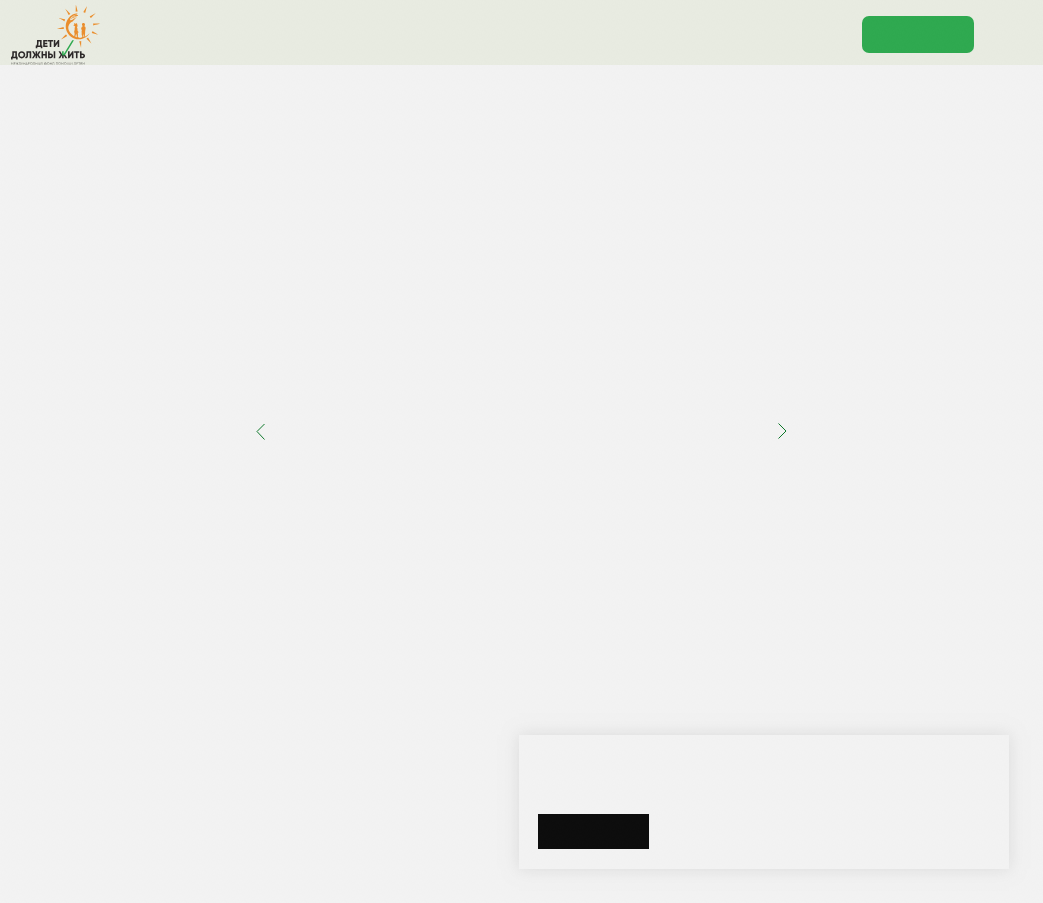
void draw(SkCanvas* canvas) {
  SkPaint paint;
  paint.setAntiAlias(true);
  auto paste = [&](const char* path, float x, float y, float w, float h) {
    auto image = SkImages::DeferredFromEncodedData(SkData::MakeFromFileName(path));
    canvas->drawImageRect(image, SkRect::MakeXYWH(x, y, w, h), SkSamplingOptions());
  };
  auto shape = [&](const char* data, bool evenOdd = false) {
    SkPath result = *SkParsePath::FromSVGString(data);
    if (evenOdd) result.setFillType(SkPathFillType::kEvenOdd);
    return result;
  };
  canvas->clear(0xffffffff);
  paint.setColor(0xfff4f8ec);
  canvas->drawRect(SkRect::MakeXYWH(0, 0, 1043, 65), paint);
  paste("img/1.png", 11, 5, 89, 60);
  paint.setColor(0xff26ae4a);
  canvas->drawRoundRect(SkRect::MakeXYWH(862, 16, 112, 37), 7, 7, paint);
  canvas->save();
  canvas->clipPath(shape("M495 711H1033V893H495ZM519 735H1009V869H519Z", true), true);
  paint.setColor(0x1a000000);
  paint.setMaskFilter(SkMaskFilter::MakeBlur(kNormal_SkBlurStyle, 7.5f));
  canvas->drawRect(SkRect::MakeXYWH(519, 735, 490, 134), paint);
  paint.setMaskFilter(nullptr);
  canvas->restore();
  paint.setColor(0xff000000);
  canvas->drawRect(SkRect::MakeXYWH(538, 814, 111, 35), paint);
  paint.setStroke(true);
  paint.setStrokeWidth(1);
  paint.setColor(0xff007720);
  canvas->drawPath(shape("M264.5 439.5L257 431.5L264.5 424"), paint);
  canvas->drawPath(shape("M778.5 423.5L786 431L778.5 438.5"), paint);
  paste("img/2.png", 0, 0, 1043, 903);
}
